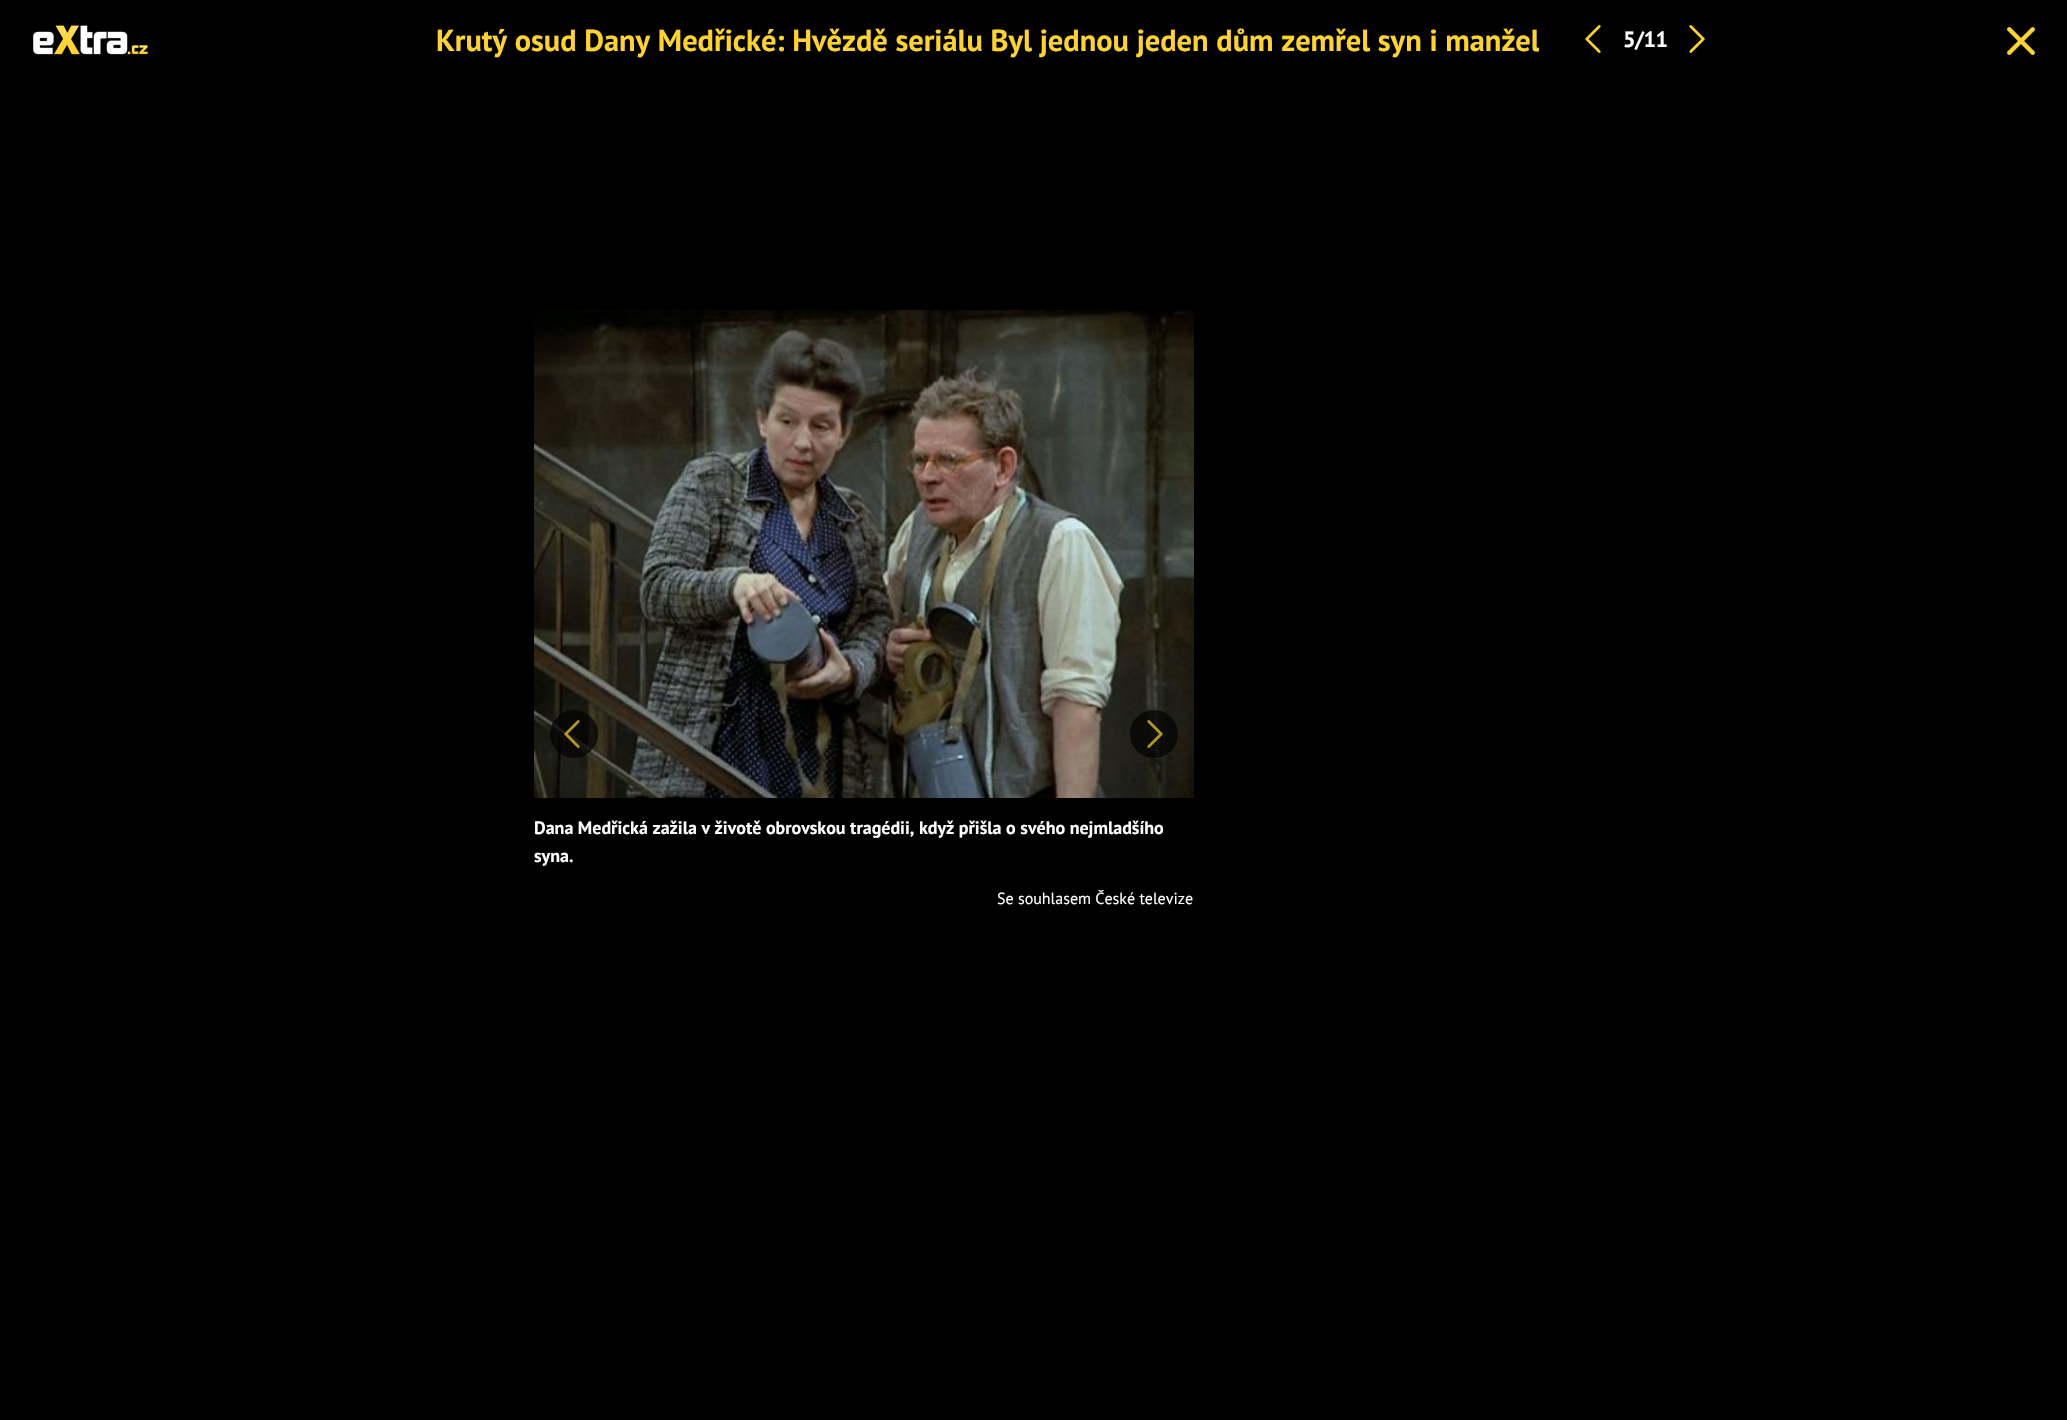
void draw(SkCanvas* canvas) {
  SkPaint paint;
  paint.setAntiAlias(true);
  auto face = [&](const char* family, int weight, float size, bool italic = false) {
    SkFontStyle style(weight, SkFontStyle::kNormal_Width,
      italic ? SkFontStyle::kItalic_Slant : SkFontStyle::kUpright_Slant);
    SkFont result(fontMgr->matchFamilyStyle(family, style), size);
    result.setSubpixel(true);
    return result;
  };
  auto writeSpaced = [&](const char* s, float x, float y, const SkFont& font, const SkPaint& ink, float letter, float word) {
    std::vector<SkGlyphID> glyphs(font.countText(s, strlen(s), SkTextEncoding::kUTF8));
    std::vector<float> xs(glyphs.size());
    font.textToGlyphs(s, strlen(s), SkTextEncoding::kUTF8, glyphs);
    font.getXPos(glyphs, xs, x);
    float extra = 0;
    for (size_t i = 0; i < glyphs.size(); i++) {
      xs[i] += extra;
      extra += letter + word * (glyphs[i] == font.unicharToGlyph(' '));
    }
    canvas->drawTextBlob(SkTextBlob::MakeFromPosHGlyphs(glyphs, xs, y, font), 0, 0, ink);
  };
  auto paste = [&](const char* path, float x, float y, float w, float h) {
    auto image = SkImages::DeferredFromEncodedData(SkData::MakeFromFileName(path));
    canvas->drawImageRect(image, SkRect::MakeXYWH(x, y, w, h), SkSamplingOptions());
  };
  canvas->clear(0xff000000);
  paste("img/1.png", 32, 25, 116, 30);
  paste("img/2.png", 1585, 25, 16, 28);
  paste("img/3.png", 1689, 25, 16, 28);
  paste("img/4.png", 2007, 27, 28, 28);
  paste("img/5.png", 534, 310, 660, 488);
  paint.setColor(0xb3000000);
  canvas->drawCircle(574, 734, 24, paint);
  paste("img/6.png", 564, 720, 16, 28);
  canvas->drawCircle(1154, 734, 24, paint);
  paste("img/7.png", 1147, 720, 16, 28);
  canvas->save();
  canvas->clipRect(SkRect::MakeXYWH(436, 22, 1103, 36));
  auto f0 = face("PT Sans", 700, 30.4f);
  paint.setColor(0xfffed232);
  canvas->drawString("Krutý osud Dany Medřické: Hvězdě seriálu Byl jednou jeden dům zemřel syn i manžel", 436, 51, f0, paint);
  canvas->restore();
  auto f1 = face("PT Sans", 700, 22);
  paint.setColor(0xffffffff);
  writeSpaced("5/11", 1623, 47, f1, paint, -0.5f, 0);
  auto f2 = face("PT Sans", 700, 18);
  canvas->drawString("Dana Medřická zažila v životě obrovskou tragédii, když přišla o svého nejmladšího", 534, 834, f2, paint);
  canvas->drawString("syna.", 534, 862, f2, paint);
  auto f3 = face("PT Sans", 400, 16);
  canvas->drawString("Se souhlasem České televize", 997, 904, f3, paint);
}
